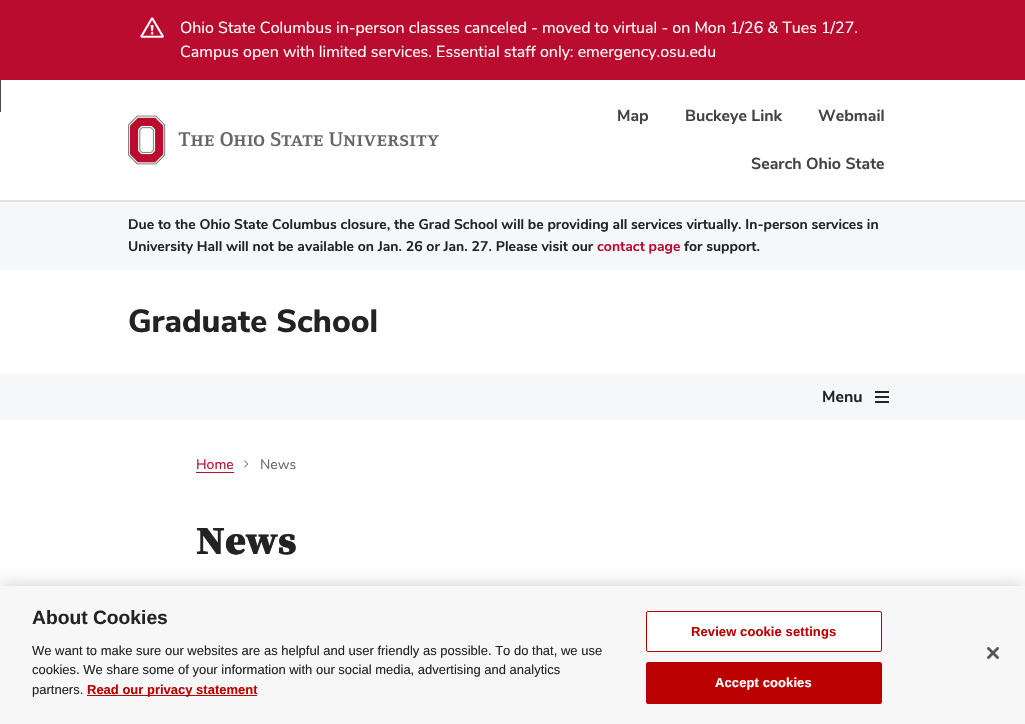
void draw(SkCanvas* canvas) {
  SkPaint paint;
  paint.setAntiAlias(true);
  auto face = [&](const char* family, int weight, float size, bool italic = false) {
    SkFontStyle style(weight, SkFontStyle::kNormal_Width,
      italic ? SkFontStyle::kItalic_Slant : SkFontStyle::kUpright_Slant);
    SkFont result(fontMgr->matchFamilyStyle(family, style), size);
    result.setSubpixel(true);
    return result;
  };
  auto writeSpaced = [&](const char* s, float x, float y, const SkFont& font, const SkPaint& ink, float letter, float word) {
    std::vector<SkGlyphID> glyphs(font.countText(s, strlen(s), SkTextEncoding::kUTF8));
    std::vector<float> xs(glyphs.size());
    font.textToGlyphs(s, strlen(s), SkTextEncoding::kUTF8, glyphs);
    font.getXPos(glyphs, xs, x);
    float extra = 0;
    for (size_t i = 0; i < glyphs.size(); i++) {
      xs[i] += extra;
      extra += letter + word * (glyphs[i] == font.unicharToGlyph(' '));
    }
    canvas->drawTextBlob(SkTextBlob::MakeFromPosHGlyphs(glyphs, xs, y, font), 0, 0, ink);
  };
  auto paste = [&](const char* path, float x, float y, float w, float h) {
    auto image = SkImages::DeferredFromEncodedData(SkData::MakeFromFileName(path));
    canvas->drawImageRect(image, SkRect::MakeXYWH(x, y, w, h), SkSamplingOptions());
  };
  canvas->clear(0xfff6f7f8);
  paint.setColor(0xffba0c2f);
  canvas->drawRect(SkRect::MakeXYWH(0, 0, 1025, 80), paint);
  paste("img/1.png", 140, 17, 24, 21);
  {
    const struct { float x, y, w, h; SkColor color; } items[] = {
      {0, 80, 1025, 120, 0xffffffff},
      {0, 80, 1, 32, 0xff4d4d4d},
      {0, 200, 1025, 2, 0xffdfe3e5},
    };
    for (auto [x, y, w, h, color] : items) {
      paint.setColor(color);
      canvas->drawRect(SkRect::MakeXYWH(x, y, w, h), paint);
    }
  }
  paste("img/2.png", 128, 115, 312, 50);
  {
    const struct { float x, y, w, h; SkColor color; } items[] = {
      {0, 270, 1025, 104, 0xffffffff},
      {0, 420, 1025, 166, 0xffffffff},
      {875, 396, 14, 2, 0xff212325},
      {875, 391, 14, 2, 0xff212325},
      {875, 401, 14, 2, 0xff212325},
      {196, 472, 38, 1, 0xffba0c2f},
    };
    for (auto [x, y, w, h, color] : items) {
      paint.setColor(color);
      canvas->drawRect(SkRect::MakeXYWH(x, y, w, h), paint);
    }
  }
  paste("img/3.png", 244, 460, 5, 8);
  paint.setColor(0x33000000);
  paint.setMaskFilter(SkMaskFilter::MakeBlur(kNormal_SkBlurStyle, 9));
  canvas->drawRect(SkRect::MakeXYWH(0, 586, 1025, 138), paint);
  paint.setMaskFilter(nullptr);
  paint.setColor(0xfff7f7f7);
  canvas->drawRect(SkRect::MakeXYWH(0, 586, 1025, 138), paint);
  paint.setColor(0xffbb0000);
  canvas->drawRect(SkRect::MakeXYWH(87, 695, 170, 1), paint);
  paint.setColor(0xffffffff);
  canvas->drawRoundRect(SkRect::MakeXYWH(646.5f, 611.5f, 235, 40), 1.5f, 1.5f, paint);
  paint.setStroke(true);
  paint.setStrokeWidth(1);
  paint.setColor(0xffbb0000);
  canvas->drawRoundRect(SkRect::MakeXYWH(646.5f, 611.5f, 235, 40), 1.5f, 1.5f, paint);
  paint.setStroke(false);
  canvas->drawRoundRect(SkRect::MakeXYWH(646.5f, 662.5f, 235, 41), 1.5f, 1.5f, paint);
  paint.setStroke(true);
  canvas->drawRoundRect(SkRect::MakeXYWH(646.5f, 662.5f, 235, 41), 1.5f, 1.5f, paint);
  paste("img/4.png", 987, 647, 12, 12);
  auto f0 = face("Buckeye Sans", 400, 16);
  paint.setStroke(false);
  paint.setColor(0xffffffff);
  canvas->drawString("Ohio State Columbus in-person classes canceled - moved to virtual - on Mon 1/26 & Tues 1/27.", 180, 33, f0, paint);
  canvas->drawString("Campus open with limited services. Essential staff only: emergency.osu.edu", 180, 57, f0, paint);
  auto f1 = face("Buckeye Sans", 700, 16);
  paint.setColor(0xff3f4443);
  {
    const struct { const char* s; float x, y; } items[] = {
      {"Map", 617, 121},
      {"Buckeye Link", 685, 121},
      {"Webmail", 818, 121},
      {"Search Ohio State", 751, 169},
    };
    for (auto [s, x, y] : items) {
      canvas->drawString(s, x, y, f1, paint);
    }
  }
  auto f2 = face("Buckeye Sans", 700, 14);
  paint.setColor(0xff212325);
  canvas->drawString("Due to the Ohio State Columbus closure, the Grad School will be providing all services virtually. In-person services in", 128, 229, f2, paint);
  canvas->drawString("University Hall will not be available on Jan. 26 or Jan. 27. Please visit our", 128, 251, f2, paint);
  paint.setColor(0xffba0c2f);
  canvas->drawString("contact page", 597, 251, f2, paint);
  paint.setColor(0xff212325);
  canvas->drawString("for support.", 684, 251, f2, paint);
  auto f3 = face("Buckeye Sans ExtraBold", 800, 32);
  canvas->drawString("Graduate School", 128, 332, f3, paint);
  canvas->drawString("Menu", 822, 402, f1, paint);
  auto f4 = face("Buckeye Sans", 400, 14);
  paint.setColor(0xffba0c2f);
  canvas->drawString("Home", 196, 469, f4, paint);
  paint.setColor(0xff646a6e);
  canvas->drawString("News", 260, 469, f4, paint);
  auto f5 = face("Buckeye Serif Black", 900, 40);
  paint.setColor(0xff212325);
  canvas->drawString("News", 196, 554, f5, paint);
  auto f6 = face("Liberation Sans", 700, 19.25f);
  canvas->drawString("About Cookies", 32, 624, f6, paint);
  auto f7 = face("Liberation Sans", 400, 13);
  {
    const struct { const char* s; float x, y; } items[] = {
      {"We want to make sure our websites are as helpful and user friendly as possible. To do that, we use", 32, 655},
      {"cookies. We share some of your information with our social media, advertising and analytics", 32, 674},
      {"partners.", 32, 694},
    };
    for (auto [s, x, y] : items) {
      canvas->drawString(s, x, y, f7, paint);
    }
  }
  auto f8 = face("Liberation Sans", 700, 13);
  paint.setColor(0xffbb0000);
  canvas->drawString("Read our privacy statement", 87, 694, f8, paint);
  writeSpaced("Review cookie settings", 691, 636, f8, paint, 0.1f, 0);
  paint.setColor(0xffffffff);
  writeSpaced("Accept cookies", 715, 687, f8, paint, 0.1f, 0);
}
